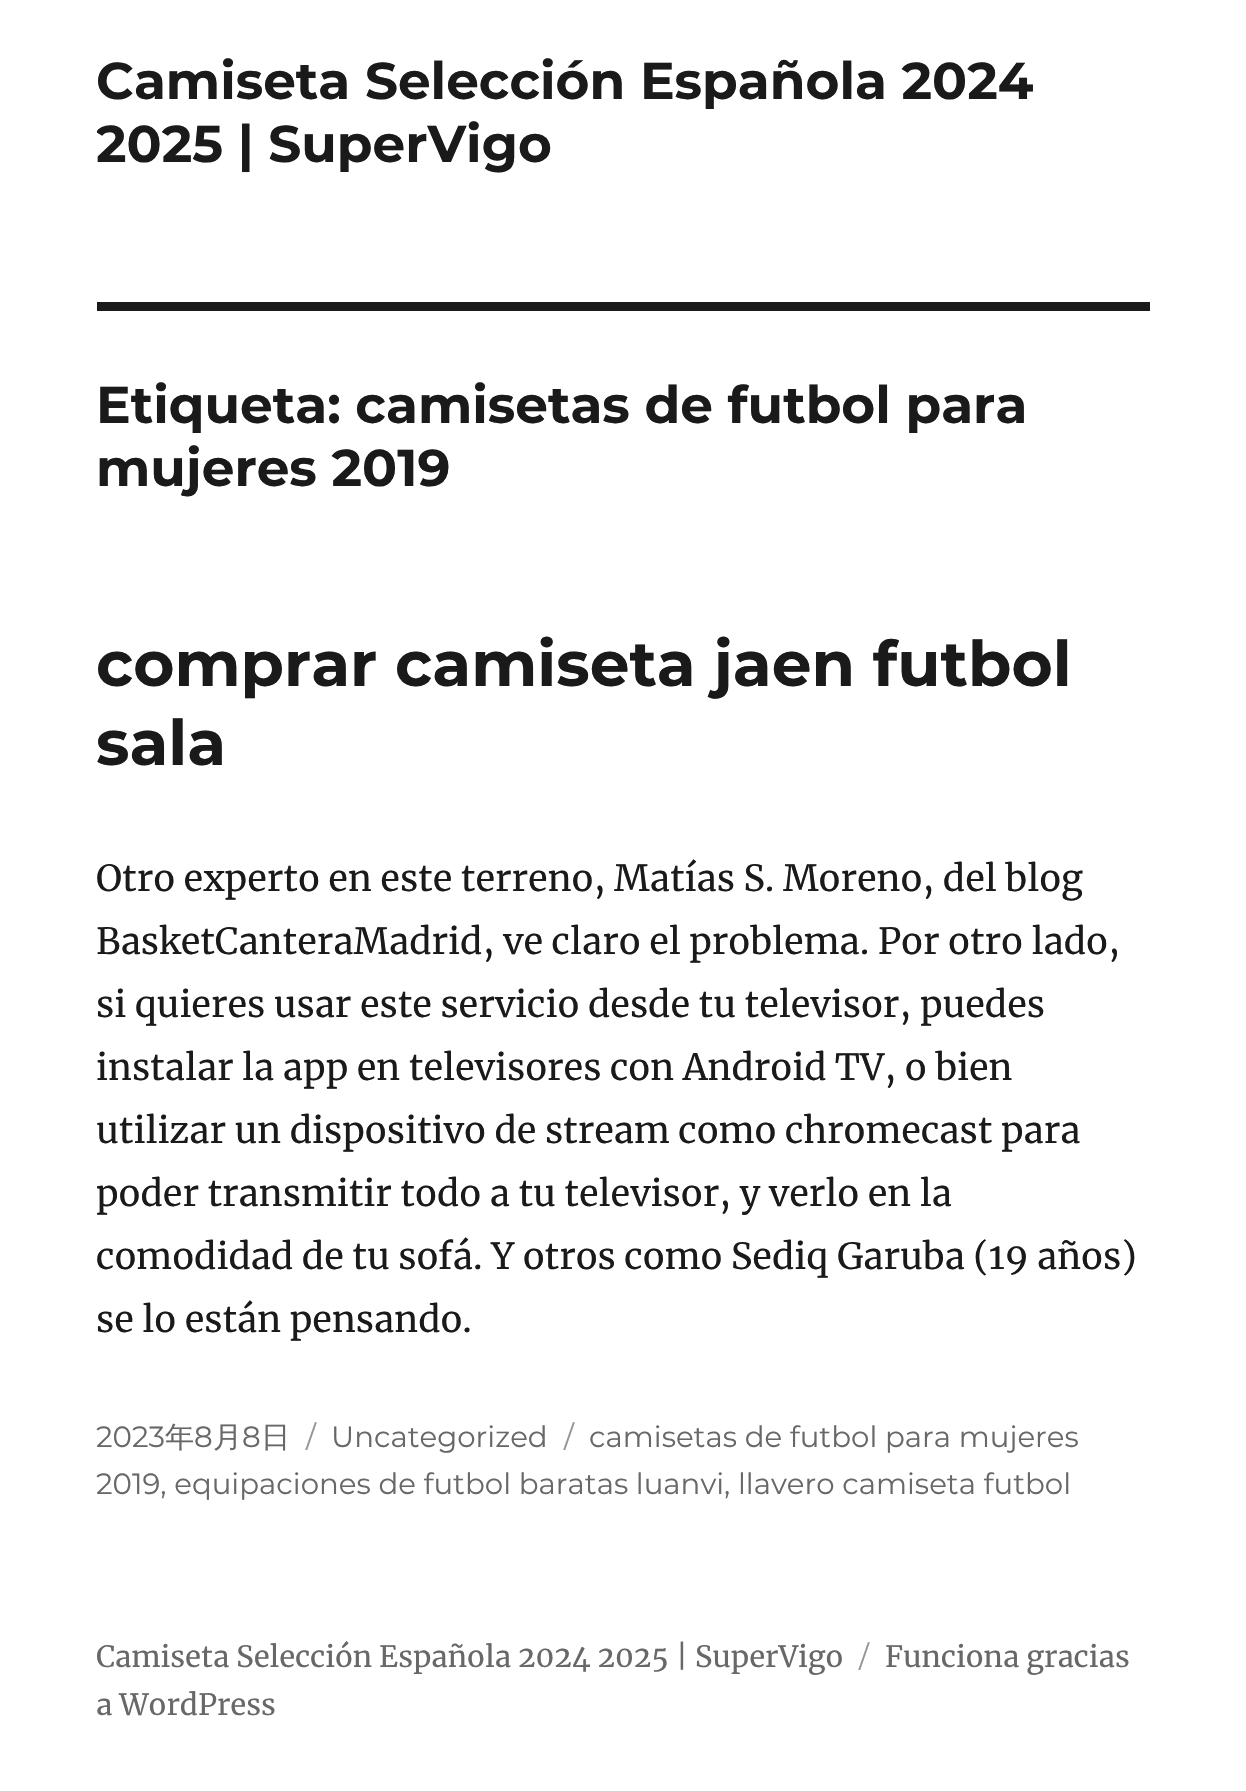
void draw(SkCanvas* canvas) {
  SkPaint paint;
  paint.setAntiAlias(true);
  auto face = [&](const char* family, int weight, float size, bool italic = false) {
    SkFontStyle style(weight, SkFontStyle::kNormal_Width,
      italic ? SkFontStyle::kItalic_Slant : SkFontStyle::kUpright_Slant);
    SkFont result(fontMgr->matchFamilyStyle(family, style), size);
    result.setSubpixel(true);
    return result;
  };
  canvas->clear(0xffffffff);
  paint.setColor(0xff1a1a1a);
  canvas->drawRect(SkRect::MakeXYWH(97, 302, 1053, 9), paint);
  auto f0 = face("Montserrat", 100, 51.75f);
  canvas->drawString("Camiseta Selección Española 2024", 96, 99, f0, paint);
  canvas->save();
  canvas->clipRect(SkRect::MakeXYWH(97, 50, 1053, 126));
  canvas->drawString("2025 | SuperVigo", 96, 162, f0, paint);
  canvas->restore();
  canvas->drawString("Etiqueta: camisetas de futbol para", 96, 423, f0, paint);
  canvas->drawString("mujeres 2019", 96, 486, f0, paint);
  auto f1 = face("Montserrat", 100, 63);
  canvas->drawString("comprar camiseta jaen futbol", 96, 686, f1, paint);
  canvas->drawString("sala", 96, 765, f1, paint);
  auto f2 = face("Merriweather", 400, 36);
  {
    const struct { const char* s; float x, y; } items[] = {
      {"Otro experto en este terreno, Matías S. Moreno, del blog", 96, 891},
      {"BasketCanteraMadrid, ve claro el problema. Por otro lado,", 96, 954},
      {"si quieres usar este servicio desde tu televisor, puedes", 96, 1017},
      {"instalar la app en televisores con Android TV, o bien", 96, 1080},
      {"utilizar un dispositivo de stream como chromecast para", 96, 1143},
      {"poder transmitir todo a tu televisor, y verlo en la", 96, 1206},
      {"comodidad de tu sofá. Y otros como Sediq Garuba (19 años)", 96, 1269},
      {"se lo están pensando.", 96, 1332},
    };
    for (auto [s, x, y] : items) {
      canvas->drawString(s, x, y, f2, paint);
    }
  }
  auto f3 = face("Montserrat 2", 100, 29.25f);
  paint.setColor(0xff686868);
  canvas->drawString("2023", 96, 1447, f3, paint);
  auto f4 = face("WenQuanYi Zen Hei", 500, 29.25f);
  canvas->drawString("年", 165, 1447, f4, paint);
  canvas->drawString("8", 194, 1447, f3, paint);
  canvas->drawString("月", 213, 1447, f4, paint);
  canvas->drawString("8", 242, 1447, f3, paint);
  canvas->drawString("日", 261, 1447, f4, paint);
  paint.setColor(0xff959595);
  canvas->drawString("/", 306, 1447, f3, paint);
  paint.setColor(0xff686868);
  canvas->drawString("Uncategorized", 331, 1447, f3, paint);
  paint.setColor(0xff959595);
  canvas->drawString("/", 564, 1447, f3, paint);
  paint.setColor(0xff686868);
  canvas->drawString("camisetas de futbol para mujeres", 589, 1447, f3, paint);
  canvas->drawString("2019, equipaciones de futbol baratas luanvi, llavero camiseta futbol", 96, 1494, f3, paint);
  auto f5 = face("Merriweather", 400, 29.25f);
  canvas->drawString("Camiseta Selección Española 2024 2025 | SuperVigo", 96, 1667, f5, paint);
  paint.setColor(0xff959595);
  canvas->drawString("/", 859, 1667, f3, paint);
  paint.setColor(0xff686868);
  canvas->drawString("Funciona gracias", 885, 1667, f5, paint);
  canvas->drawString("a WordPress", 96, 1715, f5, paint);
}
